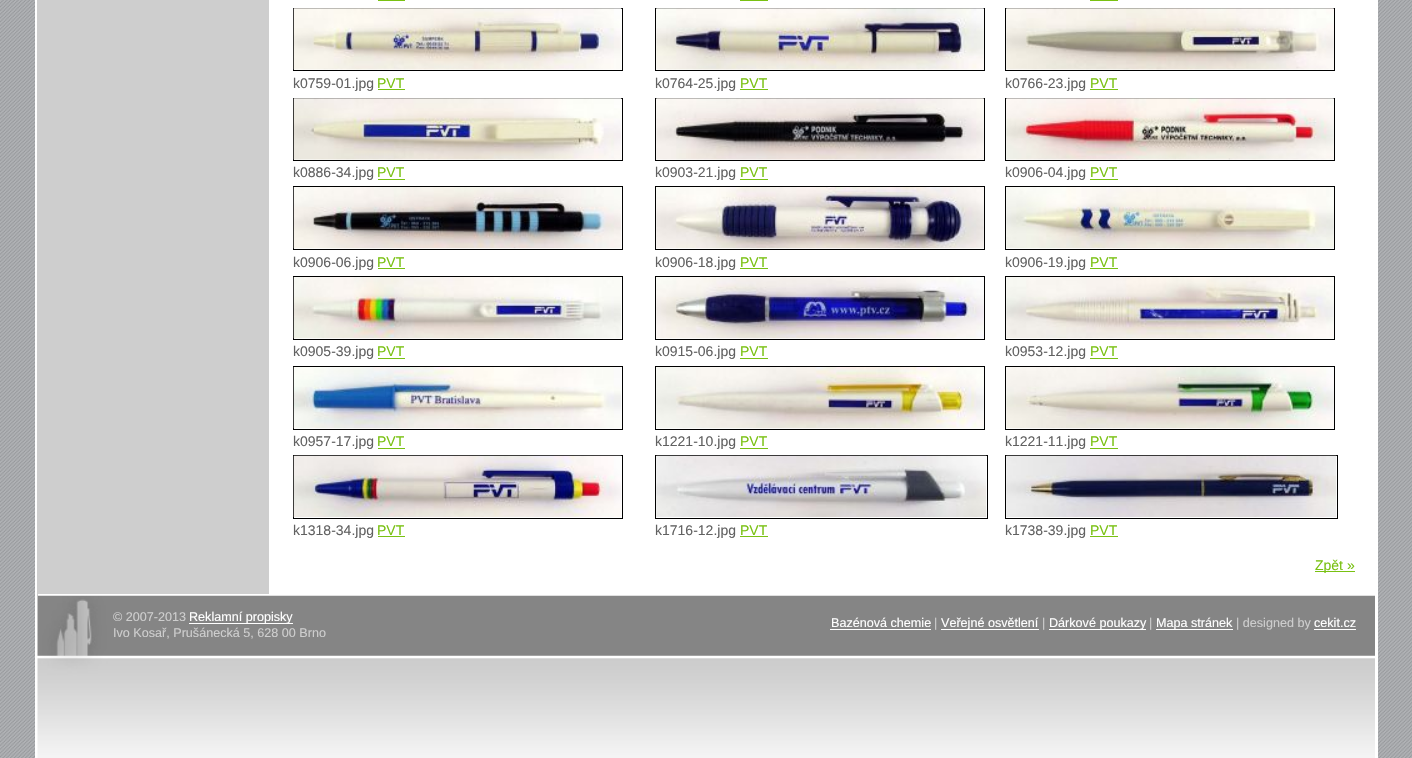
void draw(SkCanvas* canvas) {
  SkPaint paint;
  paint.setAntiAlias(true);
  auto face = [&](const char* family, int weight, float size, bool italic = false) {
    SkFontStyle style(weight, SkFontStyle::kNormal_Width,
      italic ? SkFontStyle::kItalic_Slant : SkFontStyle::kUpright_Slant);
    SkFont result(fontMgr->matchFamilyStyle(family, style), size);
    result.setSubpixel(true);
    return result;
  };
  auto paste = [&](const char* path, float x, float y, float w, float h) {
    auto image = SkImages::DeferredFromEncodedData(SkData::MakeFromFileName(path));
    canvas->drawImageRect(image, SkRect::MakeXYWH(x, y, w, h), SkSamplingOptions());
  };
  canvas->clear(0xffffffff);
  paste("img/1.png", 0, 0, 1412, 758);
  {
    const struct { float x, y, w, h; SkColor color; } items[] = {
      {35, 0, 1343, 758, 0xffffffff},
      {37, 0, 232, 596, 0xffcecece},
      {38, 594, 231, 2, 0xffffffff},
      {378, 0, 27, 1, 0xff79c112},
      {740, 0, 28, 1, 0xff79c112},
      {1090, 0, 28, 1, 0xff79c112},
    };
    for (auto [x, y, w, h, color] : items) {
      paint.setColor(color);
      canvas->drawRect(SkRect::MakeXYWH(x, y, w, h), paint);
    }
  }
  paint.setStroke(true);
  paint.setStrokeWidth(1);
  paint.setColor(0xff000000);
  canvas->drawRect(SkRect::MakeXYWH(293.5f, 8.5f, 329, 62), paint);
  paste("img/2.png", 293, 8, 329, 62);
  paint.setStroke(false);
  paint.setColor(0xff79c112);
  canvas->drawRect(SkRect::MakeXYWH(378, 89, 27, 1), paint);
  paint.setStroke(true);
  paint.setColor(0xff000000);
  canvas->drawRect(SkRect::MakeXYWH(655.5f, 8.5f, 329, 62), paint);
  paste("img/3.png", 656, 8, 328, 62);
  paint.setStroke(false);
  paint.setColor(0xff79c112);
  canvas->drawRect(SkRect::MakeXYWH(740, 89, 28, 1), paint);
  paint.setStroke(true);
  paint.setColor(0xff000000);
  canvas->drawRect(SkRect::MakeXYWH(1005.5f, 8.5f, 329, 62), paint);
  paste("img/4.png", 1006, 8, 328, 62);
  paint.setStroke(false);
  paint.setColor(0xff79c112);
  canvas->drawRect(SkRect::MakeXYWH(1090, 89, 28, 1), paint);
  paint.setStroke(true);
  paint.setColor(0xff000000);
  canvas->drawRect(SkRect::MakeXYWH(293.5f, 98.5f, 329, 62), paint);
  paste("img/5.png", 293, 98, 329, 62);
  paint.setStroke(false);
  paint.setColor(0xff79c112);
  canvas->drawRect(SkRect::MakeXYWH(378, 179, 27, 1), paint);
  paint.setStroke(true);
  paint.setColor(0xff000000);
  canvas->drawRect(SkRect::MakeXYWH(655.5f, 98.5f, 329, 62), paint);
  paste("img/6.png", 656, 98, 328, 62);
  paint.setStroke(false);
  paint.setColor(0xff79c112);
  canvas->drawRect(SkRect::MakeXYWH(740, 179, 28, 1), paint);
  paint.setStroke(true);
  paint.setColor(0xff000000);
  canvas->drawRect(SkRect::MakeXYWH(1005.5f, 98.5f, 329, 62), paint);
  paste("img/7.png", 1006, 98, 328, 62);
  paint.setStroke(false);
  paint.setColor(0xff79c112);
  canvas->drawRect(SkRect::MakeXYWH(1090, 179, 28, 1), paint);
  paint.setStroke(true);
  paint.setColor(0xff000000);
  canvas->drawRect(SkRect::MakeXYWH(293.5f, 186.5f, 329, 63), paint);
  paste("img/8.png", 293, 187, 329, 62);
  paint.setStroke(false);
  paint.setColor(0xff79c112);
  canvas->drawRect(SkRect::MakeXYWH(378, 268, 27, 1), paint);
  paint.setStroke(true);
  paint.setColor(0xff000000);
  canvas->drawRect(SkRect::MakeXYWH(655.5f, 186.5f, 329, 63), paint);
  paste("img/9.png", 656, 187, 328, 62);
  paint.setStroke(false);
  paint.setColor(0xff79c112);
  canvas->drawRect(SkRect::MakeXYWH(740, 268, 28, 1), paint);
  paint.setStroke(true);
  paint.setColor(0xff000000);
  canvas->drawRect(SkRect::MakeXYWH(1005.5f, 186.5f, 329, 63), paint);
  paste("img/10.png", 1006, 187, 328, 62);
  paint.setStroke(false);
  paint.setColor(0xff79c112);
  canvas->drawRect(SkRect::MakeXYWH(1090, 268, 28, 1), paint);
  paint.setStroke(true);
  paint.setColor(0xff000000);
  canvas->drawRect(SkRect::MakeXYWH(293.5f, 276.5f, 329, 63), paint);
  paste("img/11.png", 293, 277, 329, 62);
  paint.setStroke(false);
  paint.setColor(0xff79c112);
  canvas->drawRect(SkRect::MakeXYWH(378, 358, 27, 1), paint);
  paint.setStroke(true);
  paint.setColor(0xff000000);
  canvas->drawRect(SkRect::MakeXYWH(655.5f, 276.5f, 329, 63), paint);
  paste("img/12.png", 656, 277, 328, 62);
  paint.setStroke(false);
  paint.setColor(0xff79c112);
  canvas->drawRect(SkRect::MakeXYWH(740, 358, 28, 1), paint);
  paint.setStroke(true);
  paint.setColor(0xff000000);
  canvas->drawRect(SkRect::MakeXYWH(1005.5f, 276.5f, 329, 63), paint);
  paste("img/13.png", 1006, 277, 328, 62);
  paint.setStroke(false);
  paint.setColor(0xff79c112);
  canvas->drawRect(SkRect::MakeXYWH(1090, 358, 28, 1), paint);
  paint.setStroke(true);
  paint.setColor(0xff000000);
  canvas->drawRect(SkRect::MakeXYWH(293.5f, 366.5f, 329, 63), paint);
  paste("img/14.png", 293, 367, 329, 62);
  paint.setStroke(false);
  paint.setColor(0xff79c112);
  canvas->drawRect(SkRect::MakeXYWH(378, 448, 27, 1), paint);
  paint.setStroke(true);
  paint.setColor(0xff000000);
  canvas->drawRect(SkRect::MakeXYWH(655.5f, 366.5f, 329, 63), paint);
  paste("img/15.png", 656, 367, 328, 62);
  paint.setStroke(false);
  paint.setColor(0xff79c112);
  canvas->drawRect(SkRect::MakeXYWH(740, 448, 28, 1), paint);
  paint.setStroke(true);
  paint.setColor(0xff000000);
  canvas->drawRect(SkRect::MakeXYWH(1005.5f, 366.5f, 329, 63), paint);
  paste("img/16.png", 1006, 367, 328, 62);
  paint.setStroke(false);
  paint.setColor(0xff79c112);
  canvas->drawRect(SkRect::MakeXYWH(1090, 448, 28, 1), paint);
  paint.setStroke(true);
  paint.setColor(0xff000000);
  canvas->drawRect(SkRect::MakeXYWH(293.5f, 455.5f, 329, 63), paint);
  paste("img/17.png", 293, 455, 329, 62);
  paint.setStroke(false);
  paint.setColor(0xff79c112);
  canvas->drawRect(SkRect::MakeXYWH(378, 536, 27, 1), paint);
  paint.setStroke(true);
  paint.setColor(0xff000000);
  canvas->drawRect(SkRect::MakeXYWH(655.5f, 455.5f, 332, 63), paint);
  paste("img/18.png", 656, 455, 331, 62);
  paint.setStroke(false);
  paint.setColor(0xff79c112);
  canvas->drawRect(SkRect::MakeXYWH(740, 536, 28, 1), paint);
  paint.setStroke(true);
  paint.setColor(0xff000000);
  canvas->drawRect(SkRect::MakeXYWH(1005.5f, 455.5f, 332, 63), paint);
  paste("img/19.png", 1006, 455, 331, 62);
  paint.setStroke(false);
  paint.setColor(0xff79c112);
  canvas->drawRect(SkRect::MakeXYWH(1090, 536, 28, 1), paint);
  canvas->drawRect(SkRect::MakeXYWH(1315, 571, 40, 1), paint);
  paste("img/20.png", 37, 595, 1338, 163);
  {
    const struct { float x, y, w, h; SkColor color; } items[] = {
      {189, 623, 104, 1, 0xffffffff},
      {830, 629, 101, 1, 0xffffffff},
      {941, 629, 98, 1, 0xffffffff},
      {1049, 629, 97, 1, 0xffffffff},
      {1156, 629, 77, 1, 0xffffffff},
      {1314, 629, 42, 1, 0xffffffff},
    };
    for (auto [x, y, w, h, color] : items) {
      paint.setColor(color);
      canvas->drawRect(SkRect::MakeXYWH(x, y, w, h), paint);
    }
  }
  auto f0 = face("Liberation Sans", 400, 14);
  paint.setColor(0xff616161);
  canvas->drawString("k0759-01.jpg", 293, 88, f0, paint);
  paint.setColor(0xff79c112);
  canvas->drawString("PVT", 377, 88, f0, paint);
  paint.setColor(0xff616161);
  canvas->drawString("k0764-25.jpg", 655, 88, f0, paint);
  paint.setColor(0xff79c112);
  canvas->drawString("PVT", 740, 88, f0, paint);
  paint.setColor(0xff616161);
  canvas->drawString("k0766-23.jpg", 1005, 88, f0, paint);
  paint.setColor(0xff79c112);
  canvas->drawString("PVT", 1090, 88, f0, paint);
  paint.setColor(0xff616161);
  canvas->drawString("k0886-34.jpg", 293, 177, f0, paint);
  paint.setColor(0xff79c112);
  canvas->drawString("PVT", 377, 177, f0, paint);
  paint.setColor(0xff616161);
  canvas->drawString("k0903-21.jpg", 655, 177, f0, paint);
  paint.setColor(0xff79c112);
  canvas->drawString("PVT", 740, 177, f0, paint);
  paint.setColor(0xff616161);
  canvas->drawString("k0906-04.jpg", 1005, 177, f0, paint);
  paint.setColor(0xff79c112);
  canvas->drawString("PVT", 1090, 177, f0, paint);
  paint.setColor(0xff616161);
  canvas->drawString("k0906-06.jpg", 293, 267, f0, paint);
  paint.setColor(0xff79c112);
  canvas->drawString("PVT", 377, 267, f0, paint);
  paint.setColor(0xff616161);
  canvas->drawString("k0906-18.jpg", 655, 267, f0, paint);
  paint.setColor(0xff79c112);
  canvas->drawString("PVT", 740, 267, f0, paint);
  paint.setColor(0xff616161);
  canvas->drawString("k0906-19.jpg", 1005, 267, f0, paint);
  paint.setColor(0xff79c112);
  canvas->drawString("PVT", 1090, 267, f0, paint);
  paint.setColor(0xff616161);
  canvas->drawString("k0905-39.jpg", 293, 356, f0, paint);
  paint.setColor(0xff79c112);
  canvas->drawString("PVT", 377, 356, f0, paint);
  paint.setColor(0xff616161);
  canvas->drawString("k0915-06.jpg", 655, 356, f0, paint);
  paint.setColor(0xff79c112);
  canvas->drawString("PVT", 740, 356, f0, paint);
  paint.setColor(0xff616161);
  canvas->drawString("k0953-12.jpg", 1005, 356, f0, paint);
  paint.setColor(0xff79c112);
  canvas->drawString("PVT", 1090, 356, f0, paint);
  paint.setColor(0xff616161);
  canvas->drawString("k0957-17.jpg", 293, 446, f0, paint);
  paint.setColor(0xff79c112);
  canvas->drawString("PVT", 377, 446, f0, paint);
  paint.setColor(0xff616161);
  canvas->drawString("k1221-10.jpg", 655, 446, f0, paint);
  paint.setColor(0xff79c112);
  canvas->drawString("PVT", 740, 446, f0, paint);
  paint.setColor(0xff616161);
  canvas->drawString("k1221-11.jpg", 1005, 446, f0, paint);
  paint.setColor(0xff79c112);
  canvas->drawString("PVT", 1090, 446, f0, paint);
  paint.setColor(0xff616161);
  canvas->drawString("k1318-34.jpg", 293, 535, f0, paint);
  paint.setColor(0xff79c112);
  canvas->drawString("PVT", 377, 535, f0, paint);
  paint.setColor(0xff616161);
  canvas->drawString("k1716-12.jpg", 655, 535, f0, paint);
  paint.setColor(0xff79c112);
  canvas->drawString("PVT", 740, 535, f0, paint);
  paint.setColor(0xff616161);
  canvas->drawString("k1738-39.jpg", 1005, 535, f0, paint);
  paint.setColor(0xff79c112);
  canvas->drawString("PVT", 1090, 535, f0, paint);
  canvas->drawString("Zpět »", 1315, 570, f0, paint);
  auto f1 = face("Liberation Sans", 400, 12.6f);
  paint.setColor(0xffcecece);
  canvas->drawString("© 2007-2013", 113, 621, f1, paint);
  paint.setColor(0xffffffff);
  canvas->drawString("Reklamní propisky", 189, 621, f1, paint);
  paint.setColor(0xffcecece);
  canvas->drawString("Ivo Kosař, Prušánecká 5, 628 00 Brno", 113, 637, f1, paint);
  paint.setColor(0xffffffff);
  canvas->drawString("Bazénová chemie", 831, 627, f1, paint);
  paint.setColor(0xffcecece);
  canvas->drawString("|", 934, 627, f1, paint);
  paint.setColor(0xffffffff);
  canvas->drawString("Veřejné osvětlení", 941, 627, f1, paint);
  paint.setColor(0xffcecece);
  canvas->drawString("|", 1042, 627, f1, paint);
  paint.setColor(0xffffffff);
  canvas->drawString("Dárkové poukazy", 1049, 627, f1, paint);
  paint.setColor(0xffcecece);
  canvas->drawString("|", 1149, 627, f1, paint);
  paint.setColor(0xffffffff);
  canvas->drawString("Mapa stránek", 1156, 627, f1, paint);
  paint.setColor(0xffcecece);
  canvas->drawString("| designed by", 1236, 627, f1, paint);
  paint.setColor(0xffffffff);
  canvas->drawString("cekit.cz", 1314, 627, f1, paint);
}
